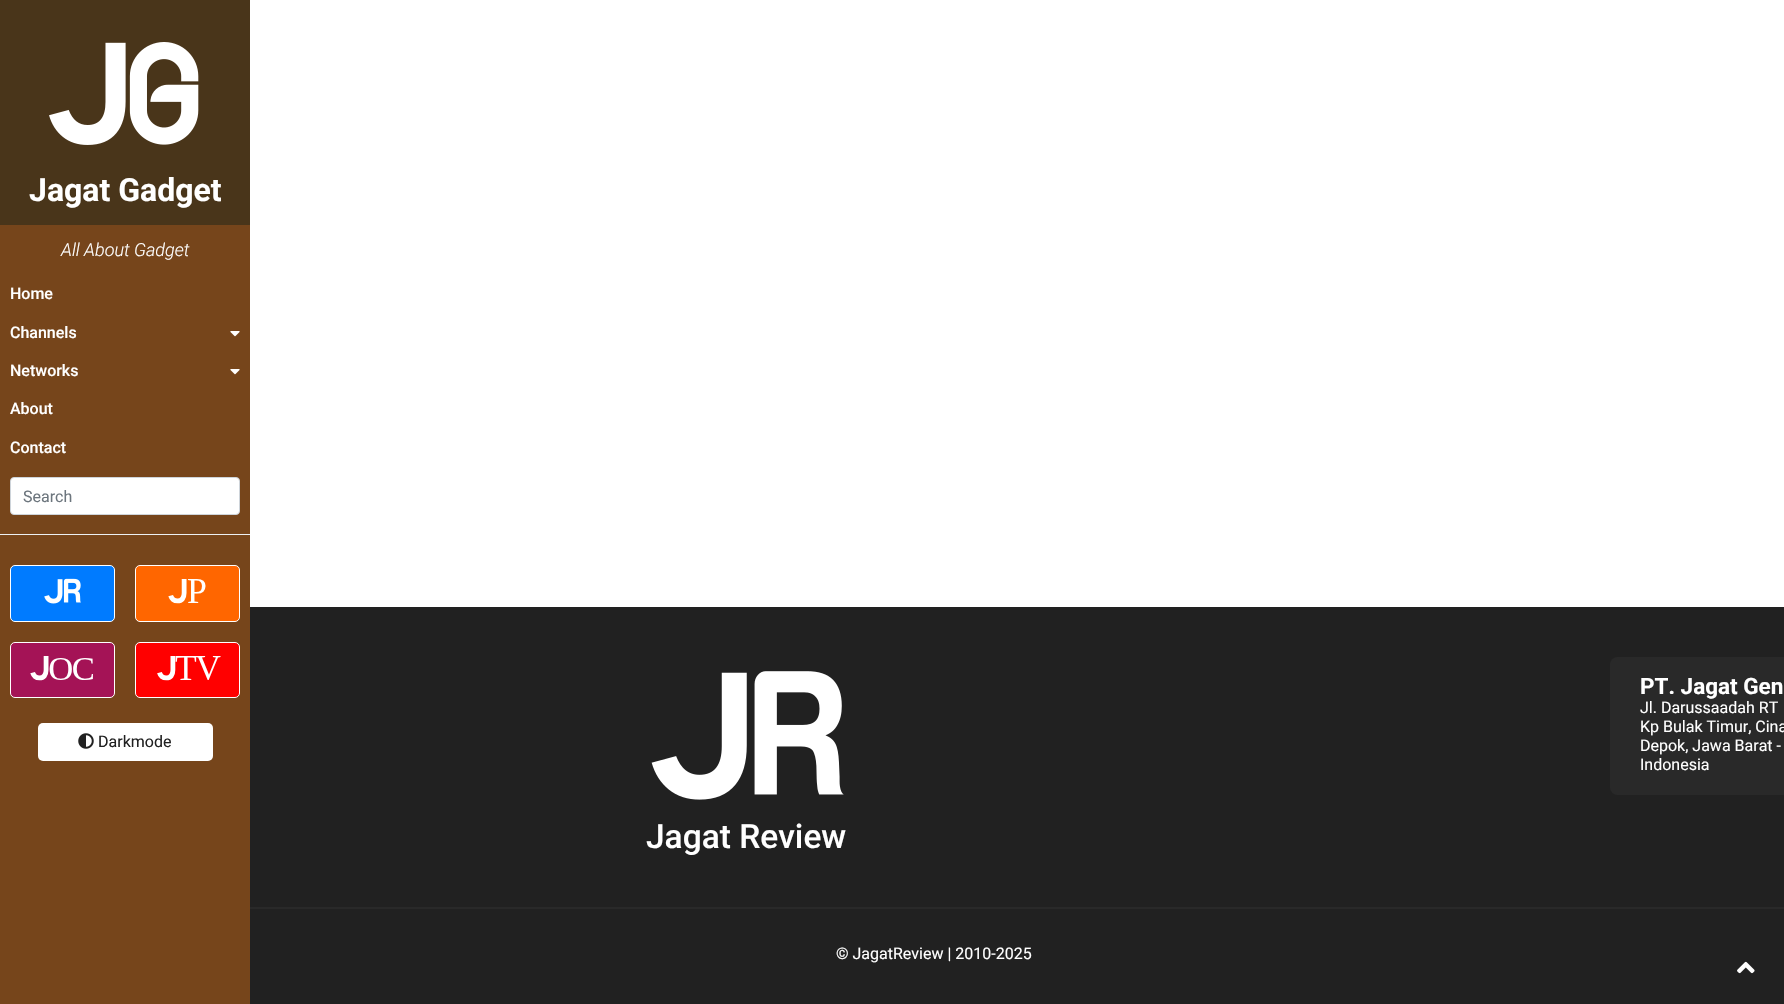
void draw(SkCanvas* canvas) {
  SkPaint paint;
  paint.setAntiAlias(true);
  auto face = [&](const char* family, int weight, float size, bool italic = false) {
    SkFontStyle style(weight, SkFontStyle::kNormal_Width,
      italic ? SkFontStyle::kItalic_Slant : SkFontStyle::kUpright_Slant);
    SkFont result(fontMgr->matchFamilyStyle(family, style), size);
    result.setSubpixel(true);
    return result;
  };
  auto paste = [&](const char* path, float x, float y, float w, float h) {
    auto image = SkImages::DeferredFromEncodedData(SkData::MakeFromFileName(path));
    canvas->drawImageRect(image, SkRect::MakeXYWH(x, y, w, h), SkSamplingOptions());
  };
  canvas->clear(0xffffffff);
  paint.setColor(0xff76451b);
  canvas->drawRect(SkRect::MakeXYWH(0, 225, 250, 779), paint);
  paint.setColor(0xff49351a);
  canvas->drawRect(SkRect::MakeXYWH(0, 0, 250, 225), paint);
  paste("img/1.png", 49, 42, 150, 103);
  paste("img/2.png", 230, 331, 10, 6);
  paste("img/2.png", 230, 369, 10, 6);
  paint.setColor(0xffffffff);
  canvas->drawRoundRect(SkRect::MakeXYWH(10.5f, 477.5f, 229, 37), 3.5f, 3.5f, paint);
  paint.setStroke(true);
  paint.setStrokeWidth(1);
  paint.setColor(0xffced4da);
  canvas->drawRoundRect(SkRect::MakeXYWH(10.5f, 477.5f, 229, 37), 3.5f, 3.5f, paint);
  paint.setStroke(false);
  paint.setColor(0xffedf0f3);
  canvas->drawRect(SkRect::MakeXYWH(0, 534, 250, 1), paint);
  paint.setColor(0xff007bff);
  canvas->drawRoundRect(SkRect::MakeXYWH(10.5f, 565.5f, 104, 56), 4.5f, 4.5f, paint);
  paint.setStroke(true);
  paint.setColor(0xffffffff);
  canvas->drawRoundRect(SkRect::MakeXYWH(10.5f, 565.5f, 104, 56), 4.5f, 4.5f, paint);
  paste("img/3.png", 44, 578, 37, 26);
  paint.setStroke(false);
  paint.setColor(0xffff6600);
  canvas->drawRoundRect(SkRect::MakeXYWH(135.5f, 565.5f, 104, 56), 4.5f, 4.5f, paint);
  paint.setStroke(true);
  paint.setColor(0xffffffff);
  canvas->drawRoundRect(SkRect::MakeXYWH(135.5f, 565.5f, 104, 56), 4.5f, 4.5f, paint);
  paste("img/4.png", 168, 579, 38, 25);
  paint.setStroke(false);
  paint.setColor(0xffa41356);
  canvas->drawRoundRect(SkRect::MakeXYWH(10.5f, 642.5f, 104, 55), 4.5f, 4.5f, paint);
  paint.setStroke(true);
  paint.setColor(0xffffffff);
  canvas->drawRoundRect(SkRect::MakeXYWH(10.5f, 642.5f, 104, 55), 4.5f, 4.5f, paint);
  paste("img/5.png", 30, 656, 63, 25);
  paint.setStroke(false);
  paint.setColor(0xffff0000);
  canvas->drawRoundRect(SkRect::MakeXYWH(135.5f, 642.5f, 104, 55), 4.5f, 4.5f, paint);
  paint.setStroke(true);
  paint.setColor(0xffffffff);
  canvas->drawRoundRect(SkRect::MakeXYWH(135.5f, 642.5f, 104, 55), 4.5f, 4.5f, paint);
  paste("img/6.png", 157, 656, 64, 25);
  paint.setStroke(false);
  canvas->drawRoundRect(SkRect::MakeXYWH(38, 723, 175, 38), 5, 5, paint);
  paste("img/7.png", 78, 733, 16, 16);
  paint.setColor(0xff212121);
  canvas->drawRect(SkRect::MakeXYWH(250, 607, 1534, 397), paint);
  paint.setColor(0xff292929);
  canvas->drawRect(SkRect::MakeXYWH(250, 907, 1534, 2), paint);
  canvas->drawRoundRect(SkRect::MakeXYWH(1610, 657, 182, 138), 8, 8, paint);
  paste("img/8.png", 651, 671, 193, 129);
  paste("img/9.png", 1737, 961, 18, 13);
  auto f0 = face("Roboto", 700, 32);
  paint.setColor(0xffffffff);
  canvas->drawString("Jagat Gadget", 29, 201, f0, paint);
  auto f1 = face("Roboto", 300, 18, true);
  canvas->drawString("All About Gadget", 61, 256, f1, paint);
  auto f2 = face("Roboto", 500, 16);
  {
    const struct { const char* s; float x, y; } items[] = {
      {"Home", 10, 299},
      {"Channels", 10, 338},
      {"Networks", 10, 376},
      {"About", 10, 414},
      {"Contact", 10, 453},
    };
    for (auto [s, x, y] : items) {
      canvas->drawString(s, x, y, f2, paint);
    }
  }
  auto f3 = face("Roboto", 400, 16);
  paint.setColor(0xff6c757d);
  canvas->drawString("Search", 23, 502, f3, paint);
  paint.setColor(0xff212121);
  canvas->drawString("Darkmode", 98, 747, f3, paint);
  auto f4 = face("Roboto", 700, 22.5f);
  paint.setColor(0xffffffff);
  canvas->drawString("PT. Jagat Gen", 1640, 694, f4, paint);
  {
    const struct { const char* s; float x, y; } items[] = {
      {"Jl. Darussaadah RT", 1640, 713},
      {"Kp Bulak Timur, Cina", 1640, 732},
      {"Depok, Jawa Barat -", 1640, 751},
      {"Indonesia", 1640, 770},
    };
    for (auto [s, x, y] : items) {
      canvas->drawString(s, x, y, f3, paint);
    }
  }
  auto f5 = face("Roboto", 500, 33.5f);
  canvas->drawString("Jagat Review", 646, 848, f5, paint);
  canvas->drawString("© JagatReview | 2010-2025", 836, 959, f3, paint);
}
